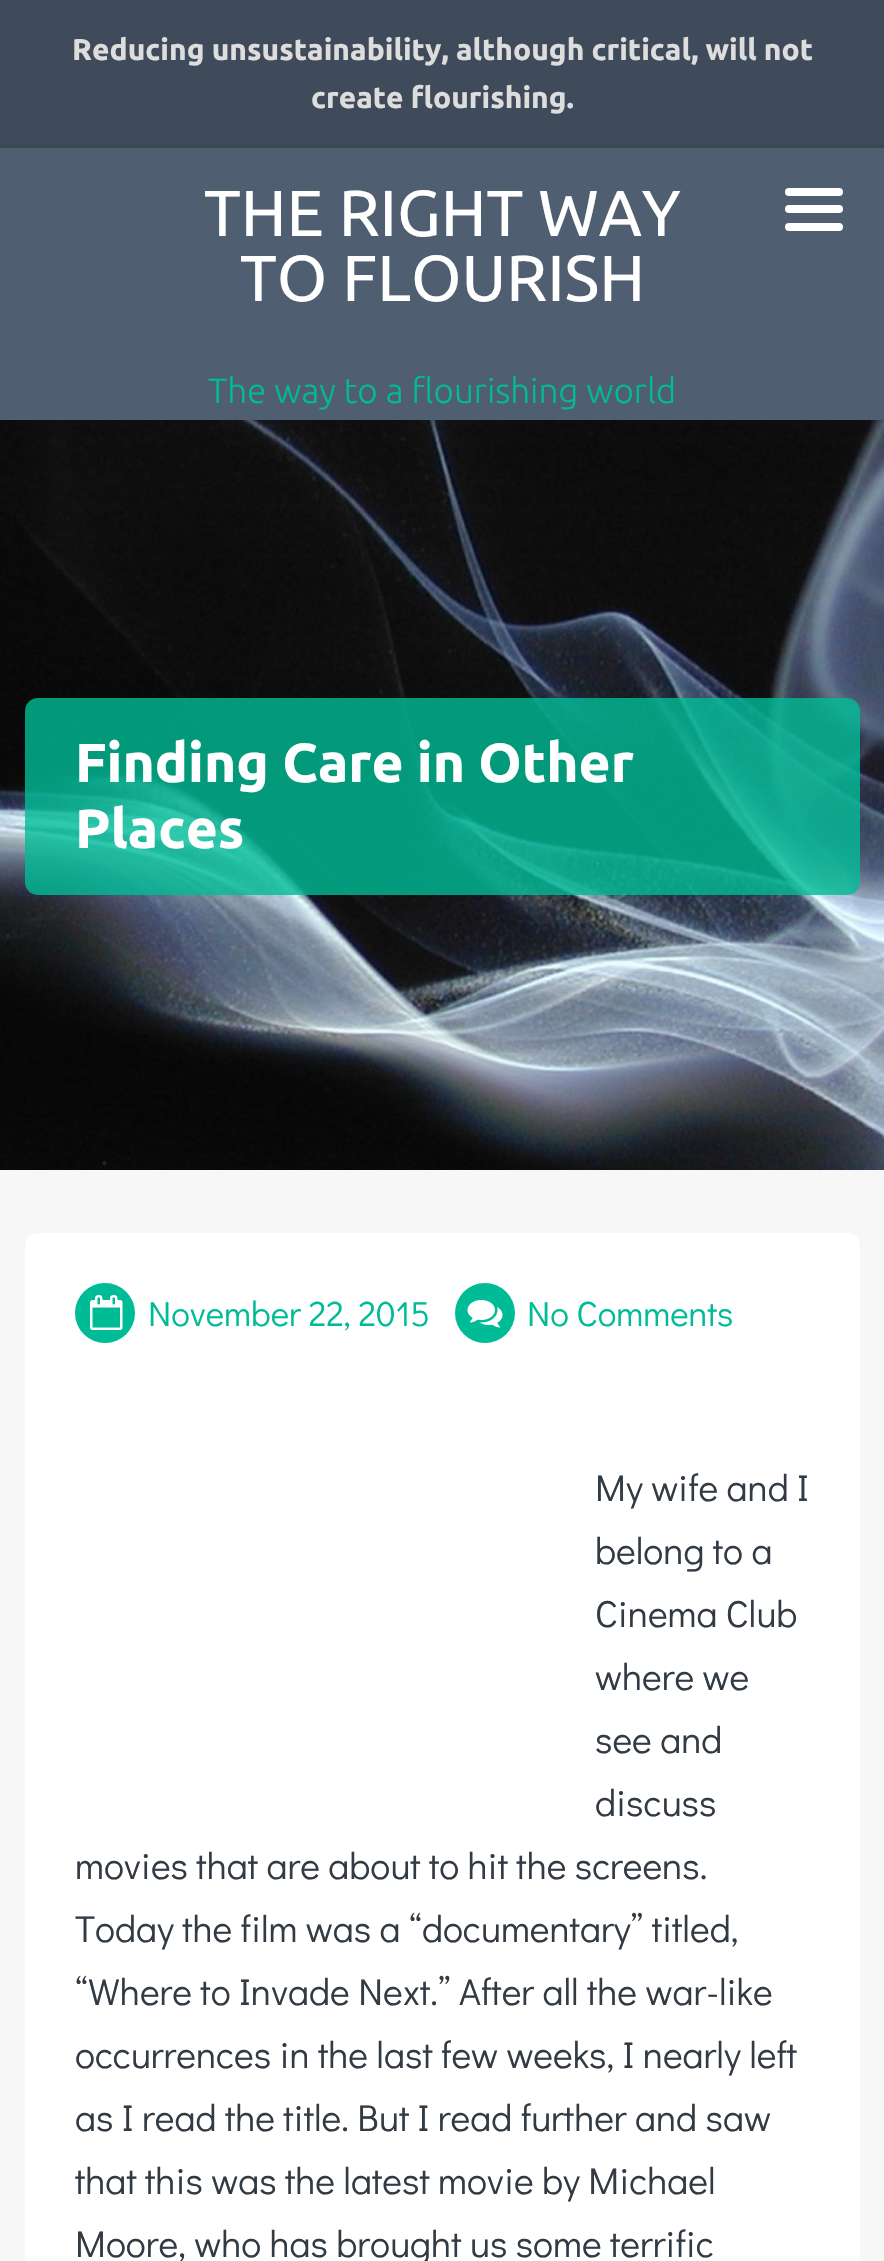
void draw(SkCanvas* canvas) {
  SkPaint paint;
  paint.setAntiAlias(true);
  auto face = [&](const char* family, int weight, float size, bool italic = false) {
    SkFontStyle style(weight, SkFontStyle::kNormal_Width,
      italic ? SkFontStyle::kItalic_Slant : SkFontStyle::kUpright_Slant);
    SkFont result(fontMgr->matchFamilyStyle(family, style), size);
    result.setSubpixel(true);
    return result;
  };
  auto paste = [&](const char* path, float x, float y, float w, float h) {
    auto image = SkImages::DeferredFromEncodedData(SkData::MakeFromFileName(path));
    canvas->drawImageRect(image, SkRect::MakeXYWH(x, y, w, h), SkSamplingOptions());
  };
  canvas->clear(0xfff7f7f7);
  {
    const struct { float x, y, w, h; SkColor color; } items[] = {
      {0, 148, 884, 272, 0xff4f5e70},
      {0, 0, 884, 145, 0xff3f4b5a},
      {0, 145, 884, 3, 0xff3c4756},
    };
    for (auto [x, y, w, h, color] : items) {
      paint.setColor(color);
      canvas->drawRect(SkRect::MakeXYWH(x, y, w, h), paint);
    }
  }
  paint.setColor(0xffffffff);
  canvas->drawRoundRect(SkRect::MakeXYWH(785, 205, 58, 8), 4, 4, paint);
  canvas->drawRoundRect(SkRect::MakeXYWH(785, 188, 58, 8), 4, 4, paint);
  canvas->drawRoundRect(SkRect::MakeXYWH(785, 223, 58, 8), 4, 4, paint);
  paste("img/1.png", 0, 420, 884, 750);
  paint.setColor(0xcc00bc96);
  canvas->drawRoundRect(SkRect::MakeXYWH(25, 698, 835, 197), 13, 13, paint);
  paint.setColor(0xffffffff);
  canvas->drawRoundRect(SkRect::MakeXYWH(25, 1233, 835, 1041), 13, 13, paint);
  paint.setColor(0xff00bc96);
  canvas->drawCircle(105, 1313, 30, paint);
  paste("img/2.png", 90, 1295, 33, 35);
  canvas->drawCircle(485, 1313, 30, paint);
  paste("img/3.png", 467, 1300, 36, 28);
  auto f0 = face("Ubuntu", 700, 30);
  paint.setColor(0xffdddddd);
  canvas->drawString("Reducing unsustainability, although critical, will not", 72, 60, f0, paint);
  canvas->drawString("create flourishing.", 311, 108, f0, paint);
  auto f1 = face("Ubuntu", 400, 65);
  paint.setColor(0xffffffff);
  canvas->drawString("THE RIGHT WAY", 204, 236, f1, paint);
  canvas->drawString("TO FLOURISH", 240, 301, f1, paint);
  auto f2 = face("Ubuntu", 300, 35);
  paint.setColor(0xff00bc96);
  canvas->drawString("The way to a flourishing world", 208, 403, f2, paint);
  auto f3 = face("Ubuntu", 700, 55);
  paint.setColor(0xffffffff);
  canvas->drawString("Finding Care in Other", 75, 782, f3, paint);
  canvas->drawString("Places", 75, 848, f3, paint);
  auto f4 = face("Didact Gothic", 400, 35);
  paint.setColor(0xff00bc96);
  canvas->drawString("November 22, 2015", 148, 1326, f4, paint);
  canvas->drawString("No Comments", 527, 1326, f4, paint);
  auto f5 = face("Didact Gothic", 400, 37.5f);
  paint.setColor(0xff323b44);
  {
    const struct { const char* s; float x, y; } items[] = {
      {"My wife and I", 595, 1501},
      {"belong to a", 595, 1564},
      {"Cinema Club", 595, 1627},
      {"where we", 595, 1690},
      {"see and", 595, 1753},
      {"discuss", 595, 1816},
      {"movies that are about to hit the screens.", 75, 1879},
      {"Today the film was a “documentary” titled,", 75, 1942},
      {"“Where to Invade Next.” After all the war-like", 75, 2005},
      {"occurrences in the last few weeks, I nearly left", 75, 2068},
      {"as I read the title. But I read further and saw", 75, 2131},
      {"that this was the latest movie by Michael", 75, 2194},
      {"Moore, who has brought us some terrific", 75, 2257},
    };
    for (auto [s, x, y] : items) {
      canvas->drawString(s, x, y, f5, paint);
    }
  }
}
